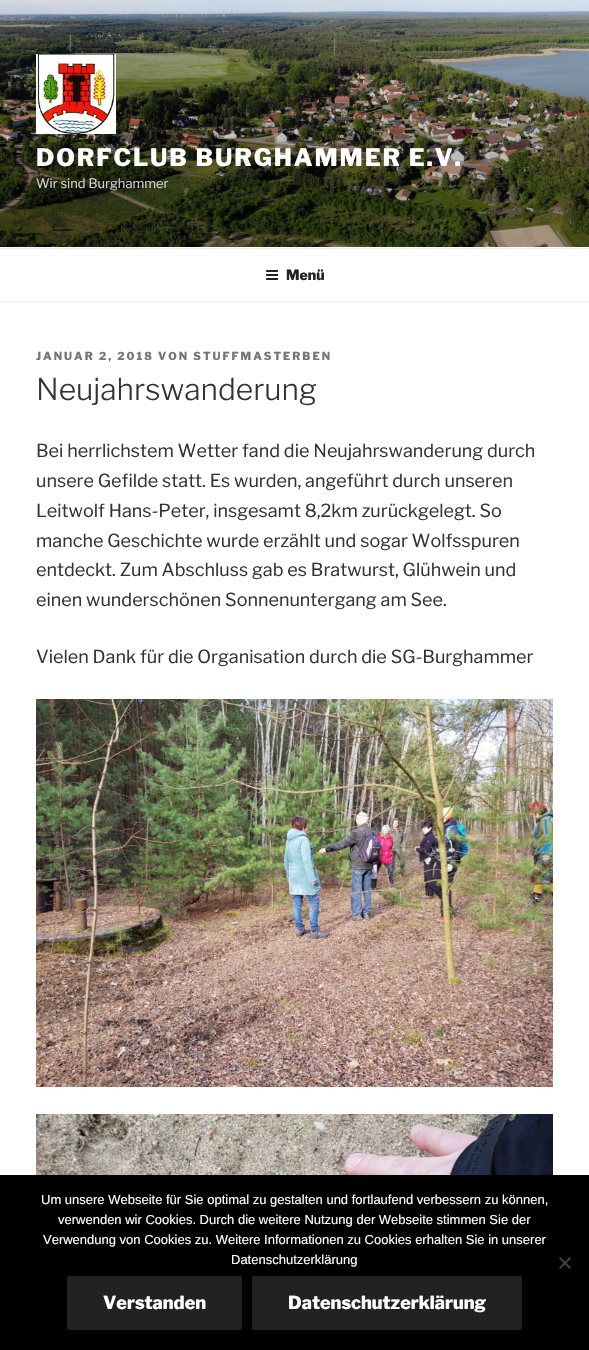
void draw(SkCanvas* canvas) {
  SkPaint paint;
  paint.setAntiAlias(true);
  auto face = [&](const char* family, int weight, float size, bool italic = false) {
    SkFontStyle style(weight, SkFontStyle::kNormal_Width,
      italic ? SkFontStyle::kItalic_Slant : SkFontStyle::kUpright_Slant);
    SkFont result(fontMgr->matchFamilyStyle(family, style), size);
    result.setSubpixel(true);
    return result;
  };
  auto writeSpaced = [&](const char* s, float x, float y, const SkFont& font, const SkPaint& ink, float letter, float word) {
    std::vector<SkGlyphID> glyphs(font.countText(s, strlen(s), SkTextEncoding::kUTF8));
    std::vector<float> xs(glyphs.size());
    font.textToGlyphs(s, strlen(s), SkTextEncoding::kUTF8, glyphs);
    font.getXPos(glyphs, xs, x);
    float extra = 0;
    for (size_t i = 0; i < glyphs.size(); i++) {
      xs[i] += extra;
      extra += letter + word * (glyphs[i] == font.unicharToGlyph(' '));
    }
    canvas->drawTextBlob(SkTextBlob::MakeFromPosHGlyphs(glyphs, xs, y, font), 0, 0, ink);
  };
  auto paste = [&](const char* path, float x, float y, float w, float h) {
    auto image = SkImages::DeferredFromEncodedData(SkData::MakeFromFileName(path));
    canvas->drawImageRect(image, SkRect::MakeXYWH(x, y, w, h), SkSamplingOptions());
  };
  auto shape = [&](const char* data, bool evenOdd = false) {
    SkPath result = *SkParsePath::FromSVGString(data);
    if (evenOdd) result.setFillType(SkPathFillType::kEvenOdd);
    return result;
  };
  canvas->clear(0xffffffff);
  paint.setColor(0xfffafafa);
  canvas->drawRect(SkRect::MakeXYWH(0, 247, 589, 1), paint);
  paste("img/1.png", 0, 0, 589, 247);
  paste("img/2.png", 36, 54, 80, 80);
  paint.setColor(0xffeeeeee);
  canvas->drawRect(SkRect::MakeXYWH(0, 248, 589, 1), paint);
  canvas->drawRect(SkRect::MakeXYWH(0, 301, 589, 1), paint);
  paste("img/3.png", 266, 270, 13, 10);
  paste("img/4.png", 36, 699, 517, 388);
  paste("img/5.png", 36, 1114, 517, 61);
  paint.setColor(0xff000000);
  canvas->drawRect(SkRect::MakeXYWH(0, 1175, 589, 175), paint);
  paint.setColor(0xff404040);
  canvas->drawPath(shape("M569.5 1257L571 1258.5L560.5 1269L559 1267.5Z"), paint);
  canvas->drawPath(shape("M559 1258.5L560.5 1257L571 1267.5L569.5 1269Z"), paint);
  paint.setColor(0xff222222);
  canvas->drawRoundRect(SkRect::MakeXYWH(67, 1276, 175, 54), 2, 2, paint);
  canvas->drawRoundRect(SkRect::MakeXYWH(252, 1276, 270, 54), 2, 2, paint);
  auto f0 = face("Libre Franklin", 100, 24);
  paint.setColor(0xffffffff);
  writeSpaced("DORFCLUB BURGHAMMER E.V.", 36, 166, f0, paint, 1.9f, 0);
  auto f1 = face("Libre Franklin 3", 100, 13);
  paint.setColor(0xffd2d3cf);
  canvas->drawString("Wir sind Burghammer", 36, 188, f1, paint);
  auto f2 = face("Libre Franklin", 100, 14);
  paint.setColor(0xff222222);
  canvas->drawString("Menü", 286, 280, f2, paint);
  auto f3 = face("Libre Franklin", 100, 11);
  paint.setColor(0xff767676);
  writeSpaced("JANUAR 2, 2018 VON STUFFMASTERBEN", 36, 360, f3, paint, 2, 0);
  auto f4 = face("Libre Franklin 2", 100, 30);
  paint.setColor(0xff333333);
  canvas->drawString("Neujahrswanderung", 36, 400, f4, paint);
  auto f5 = face("Libre Franklin 3", 100, 18);
  {
    const struct { const char* s; float x, y; } items[] = {
      {"Bei herrlichstem Wetter fand die Neujahrswanderung durch", 36, 457},
      {"unsere Gefilde statt. Es wurden, angeführt durch unseren", 36, 487},
      {"Leitwolf Hans-Peter, insgesamt 8,2km zurückgelegt. So", 36, 517},
      {"manche Geschichte wurde erzählt und sogar Wolfsspuren", 36, 547},
      {"entdeckt. Zum Abschluss gab es Bratwurst, Glühwein und", 36, 576},
      {"einen wunderschönen Sonnenuntergang am See.", 36, 606},
      {"Vielen Dank für die Organisation durch die SG-Burghammer", 36, 663},
    };
    for (auto [s, x, y] : items) {
      canvas->drawString(s, x, y, f5, paint);
    }
  }
  auto f6 = face("Liberation Sans", 400, 13);
  paint.setColor(0xffffffff);
  {
    const struct { const char* s; float x, y; } items[] = {
      {"Um unsere Webseite für Sie optimal zu gestalten und fortlaufend verbessern zu können,", 41, 1204},
      {"verwenden wir Cookies. Durch die weitere Nutzung der Webseite stimmen Sie der", 58, 1224},
      {"Verwendung von Cookies zu. Weitere Informationen zu Cookies erhalten Sie in unserer", 43, 1244},
      {"Datenschutzerklärung", 231, 1264},
    };
    for (auto [s, x, y] : items) {
      canvas->drawString(s, x, y, f6, paint);
    }
  }
  auto f7 = face("Libre Franklin", 100, 18);
  canvas->drawString("Verstanden", 103, 1309, f7, paint);
  canvas->drawString("Datenschutzerklärung", 288, 1309, f7, paint);
}
